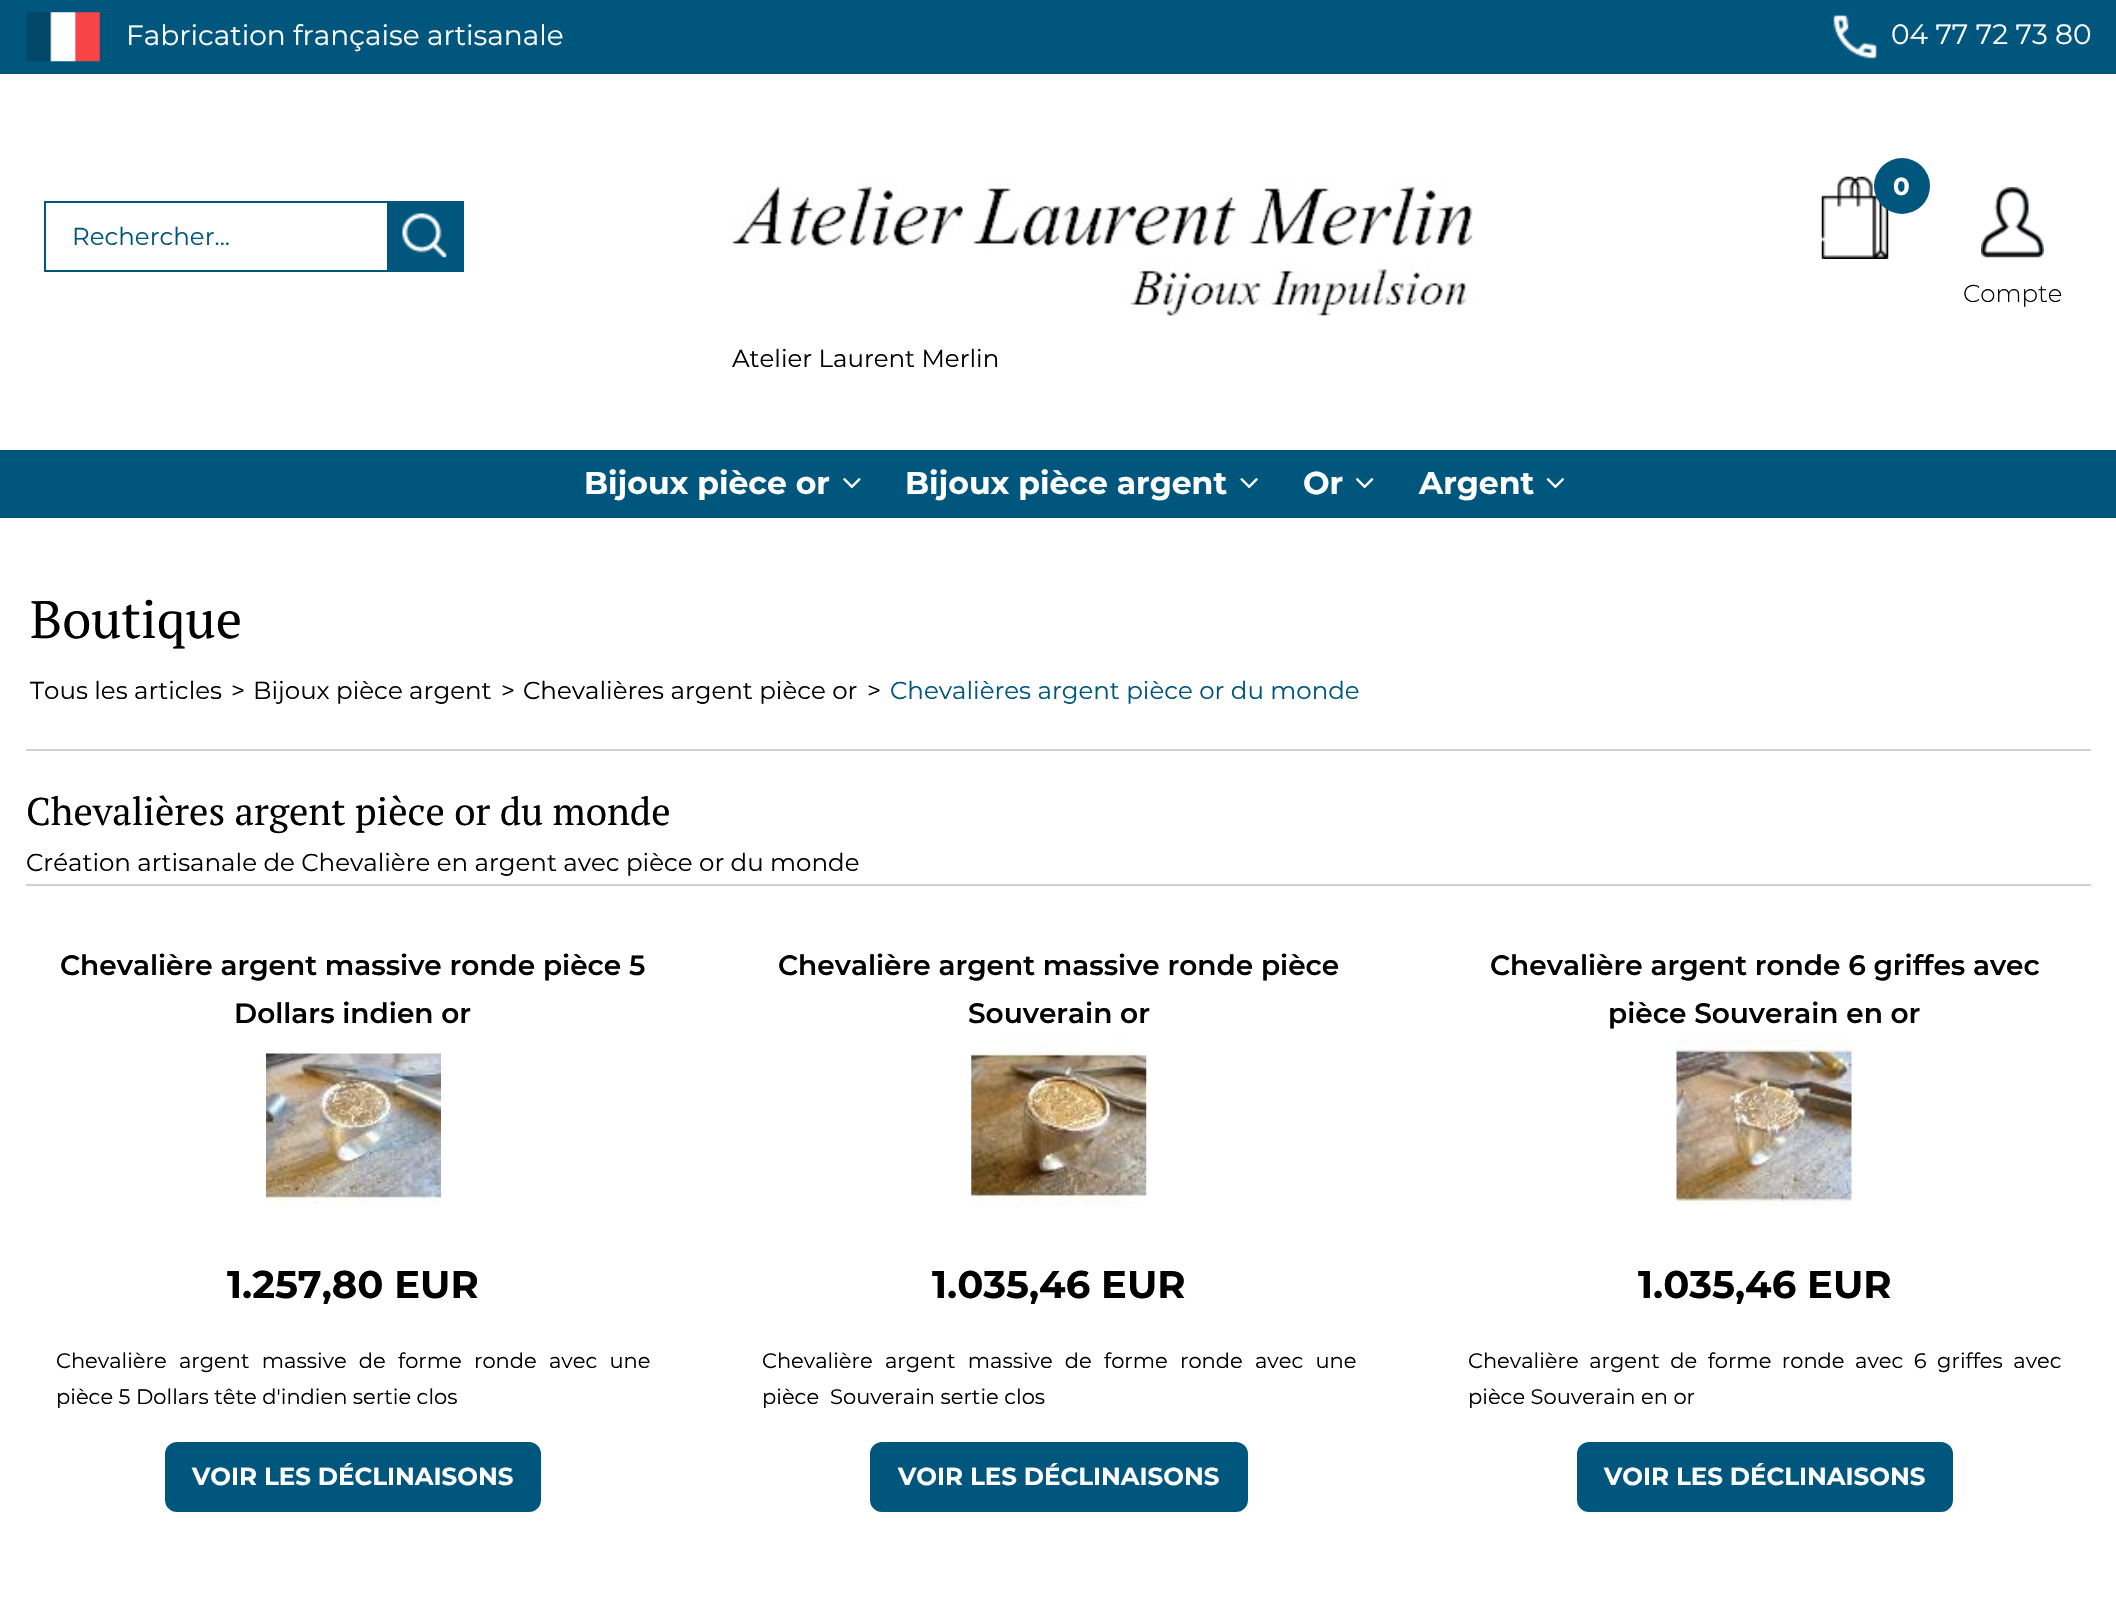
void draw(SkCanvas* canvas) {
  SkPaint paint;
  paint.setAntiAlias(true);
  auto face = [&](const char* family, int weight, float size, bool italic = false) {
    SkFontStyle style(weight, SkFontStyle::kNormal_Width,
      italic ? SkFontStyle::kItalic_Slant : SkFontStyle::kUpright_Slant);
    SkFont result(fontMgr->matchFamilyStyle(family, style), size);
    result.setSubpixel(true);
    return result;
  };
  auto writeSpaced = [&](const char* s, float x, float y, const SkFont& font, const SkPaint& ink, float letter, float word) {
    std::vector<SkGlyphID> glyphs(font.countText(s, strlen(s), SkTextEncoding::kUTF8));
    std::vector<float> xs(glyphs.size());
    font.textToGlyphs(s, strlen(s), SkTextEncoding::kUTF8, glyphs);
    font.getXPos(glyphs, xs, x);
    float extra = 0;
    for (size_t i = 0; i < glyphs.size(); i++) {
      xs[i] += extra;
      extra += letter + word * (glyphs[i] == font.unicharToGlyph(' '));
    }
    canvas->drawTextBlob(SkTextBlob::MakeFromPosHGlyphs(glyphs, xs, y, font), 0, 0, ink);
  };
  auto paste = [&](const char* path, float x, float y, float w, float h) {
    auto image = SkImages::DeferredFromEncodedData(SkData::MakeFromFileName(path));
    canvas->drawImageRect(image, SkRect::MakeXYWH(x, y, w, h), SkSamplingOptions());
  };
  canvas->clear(0xffffffff);
  paint.setColor(0xff00567d);
  canvas->drawRect(SkRect::MakeXYWH(0, 0, 2116, 74), paint);
  paste("img/1.png", 26, 12, 74, 50);
  paste("img/2.png", 1833, 15, 44, 44);
  {
    const struct { float x, y, w, h; SkColor color; } items[] = {
      {44, 201, 420, 2, 0xff00567d},
      {44, 270, 343, 2, 0xff00567d},
      {44, 201, 2, 70, 0xff00567d},
      {387, 203, 75, 67, 0xff00567d},
      {462, 201, 2, 70, 0xff00567d},
      {387, 270, 77, 2, 0xff00567d},
    };
    for (auto [x, y, w, h, color] : items) {
      paint.setColor(color);
      canvas->drawRect(SkRect::MakeXYWH(x, y, w, h), paint);
    }
  }
  paste("img/3.png", 402, 213, 45, 45);
  paste("img/4.png", 1821, 176, 68, 83);
  canvas->drawCircle(1902, 186, 28, paint);
  paste("img/5.png", 1981, 187, 63, 71);
  paste("img/6.png", 731, 179, 742, 137);
  canvas->drawRect(SkRect::MakeXYWH(0, 450, 2116, 68), paint);
  paste("img/7.png", 843, 478, 18, 11);
  paste("img/8.png", 1240, 478, 18, 11);
  paste("img/9.png", 1355, 478, 19, 11);
  paste("img/10.png", 1546, 478, 19, 11);
  paint.setColor(0xffd0d0d0);
  canvas->drawRect(SkRect::MakeXYWH(26, 749, 2065, 2), paint);
  canvas->drawRect(SkRect::MakeXYWH(26, 884, 2065, 2), paint);
  paste("img/11.png", 266, 1051, 175, 155);
  paint.setColor(0xff00567d);
  canvas->drawRoundRect(SkRect::MakeXYWH(166, 1443, 374, 68), 11, 11, paint);
  paint.setStroke(true);
  paint.setStrokeWidth(2);
  canvas->drawRoundRect(SkRect::MakeXYWH(166, 1443, 374, 68), 11, 11, paint);
  paste("img/12.png", 971, 1038, 176, 168);
  paint.setStroke(false);
  canvas->drawRoundRect(SkRect::MakeXYWH(871, 1443, 376, 68), 11, 11, paint);
  paint.setStroke(true);
  canvas->drawRoundRect(SkRect::MakeXYWH(871, 1443, 376, 68), 11, 11, paint);
  paste("img/13.png", 1676, 1038, 176, 168);
  paint.setStroke(false);
  canvas->drawRoundRect(SkRect::MakeXYWH(1578, 1443, 374, 68), 11, 11, paint);
  paint.setStroke(true);
  canvas->drawRoundRect(SkRect::MakeXYWH(1578, 1443, 374, 68), 11, 11, paint);
  auto f0 = face("Montserrat", 400, 28);
  paint.setStroke(false);
  paint.setColor(0xffffffff);
  canvas->drawString("Fabrication française artisanale", 126, 45, f0, paint);
  canvas->drawString("04 77 72 73 80", 1891, 44, f0, paint);
  auto f1 = face("Montserrat", 400, 24.5f);
  paint.setColor(0xff00567d);
  canvas->drawString("Rechercher...", 72, 245, f1, paint);
  auto f2 = face("Montserrat", 700, 24.5f);
  paint.setColor(0xffffffff);
  canvas->drawString("0", 1893, 195, f2, paint);
  auto f3 = face("Montserrat", 300, 24.5f);
  paint.setColor(0xff000000);
  canvas->drawString("Compte", 1963, 302, f3, paint);
  canvas->drawString("Atelier Laurent Merlin", 732, 367, f1, paint);
  auto f4 = face("Montserrat", 700, 31.5f);
  paint.setColor(0xffffffff);
  {
    const struct { const char* s; float x, y; } items[] = {
      {"Bijoux pièce or", 584, 494},
      {"Bijoux pièce argent", 905, 494},
      {"Or", 1303, 494},
      {"Argent", 1419, 494},
    };
    for (auto [s, x, y] : items) {
      canvas->drawString(s, x, y, f4, paint);
    }
  }
  auto f5 = face("PT Serif", 400, 52.5f);
  paint.setColor(0xff000000);
  canvas->drawString("Boutique", 30, 638, f5, paint);
  {
    const struct { const char* s; float x, y; } items[] = {
      {"Tous les articles", 30, 699},
      {">", 231, 699},
      {"Bijoux pièce argent", 253, 699},
      {">", 501, 699},
      {"Chevalières argent pièce or", 523, 699},
      {">", 867, 699},
    };
    for (auto [s, x, y] : items) {
      canvas->drawString(s, x, y, f1, paint);
    }
  }
  paint.setColor(0xff00567d);
  canvas->drawString("Chevalières argent pièce or du monde", 890, 699, f1, paint);
  auto f6 = face("PT Serif", 400, 38.5f);
  paint.setColor(0xff000000);
  canvas->drawString("Chevalières argent pièce or du monde", 26, 825, f6, paint);
  canvas->drawString("Création artisanale de Chevalière en argent avec pièce or du monde", 26, 871, f1, paint);
  auto f7 = face("Montserrat", 600, 28);
  canvas->drawString("Chevalière argent massive ronde pièce 5", 60, 975, f7, paint);
  canvas->drawString("Dollars indien or", 234, 1023, f7, paint);
  auto f8 = face("Montserrat", 700, 38.5f);
  canvas->drawString("1.257,80 EUR", 227, 1298, f8, paint);
  auto f9 = face("Montserrat", 400, 21);
  writeSpaced("Chevalière argent massive de forme ronde avec une", 56, 1368, f9, paint, 0, 6.75f);
  canvas->drawString("pièce 5 Dollars tête d'indien sertie clos", 56, 1404, f9, paint);
  paint.setColor(0xffffffff);
  canvas->drawString("VOIR LES DÉCLINAISONS", 192, 1485, f2, paint);
  paint.setColor(0xff000000);
  canvas->drawString("Chevalière argent massive ronde pièce", 778, 975, f7, paint);
  canvas->drawString("Souverain or", 968, 1023, f7, paint);
  canvas->drawString("1.035,46 EUR", 932, 1298, f8, paint);
  writeSpaced("Chevalière argent massive de forme ronde avec une", 762, 1368, f9, paint, 0, 6.75f);
  canvas->drawString("pièce  Souverain sertie clos", 762, 1404, f9, paint);
  paint.setColor(0xffffffff);
  canvas->drawString("VOIR LES DÉCLINAISONS", 898, 1485, f2, paint);
  paint.setColor(0xff000000);
  canvas->drawString("Chevalière argent ronde 6 griffes avec", 1490, 975, f7, paint);
  canvas->drawString("pièce Souverain en or", 1608, 1023, f7, paint);
  canvas->drawString("1.035,46 EUR", 1638, 1298, f8, paint);
  writeSpaced("Chevalière argent de forme ronde avec 6 griffes avec", 1468, 1368, f9, paint, 0, 5);
  canvas->drawString("pièce Souverain en or", 1468, 1404, f9, paint);
  paint.setColor(0xffffffff);
  canvas->drawString("VOIR LES DÉCLINAISONS", 1604, 1485, f2, paint);
}
